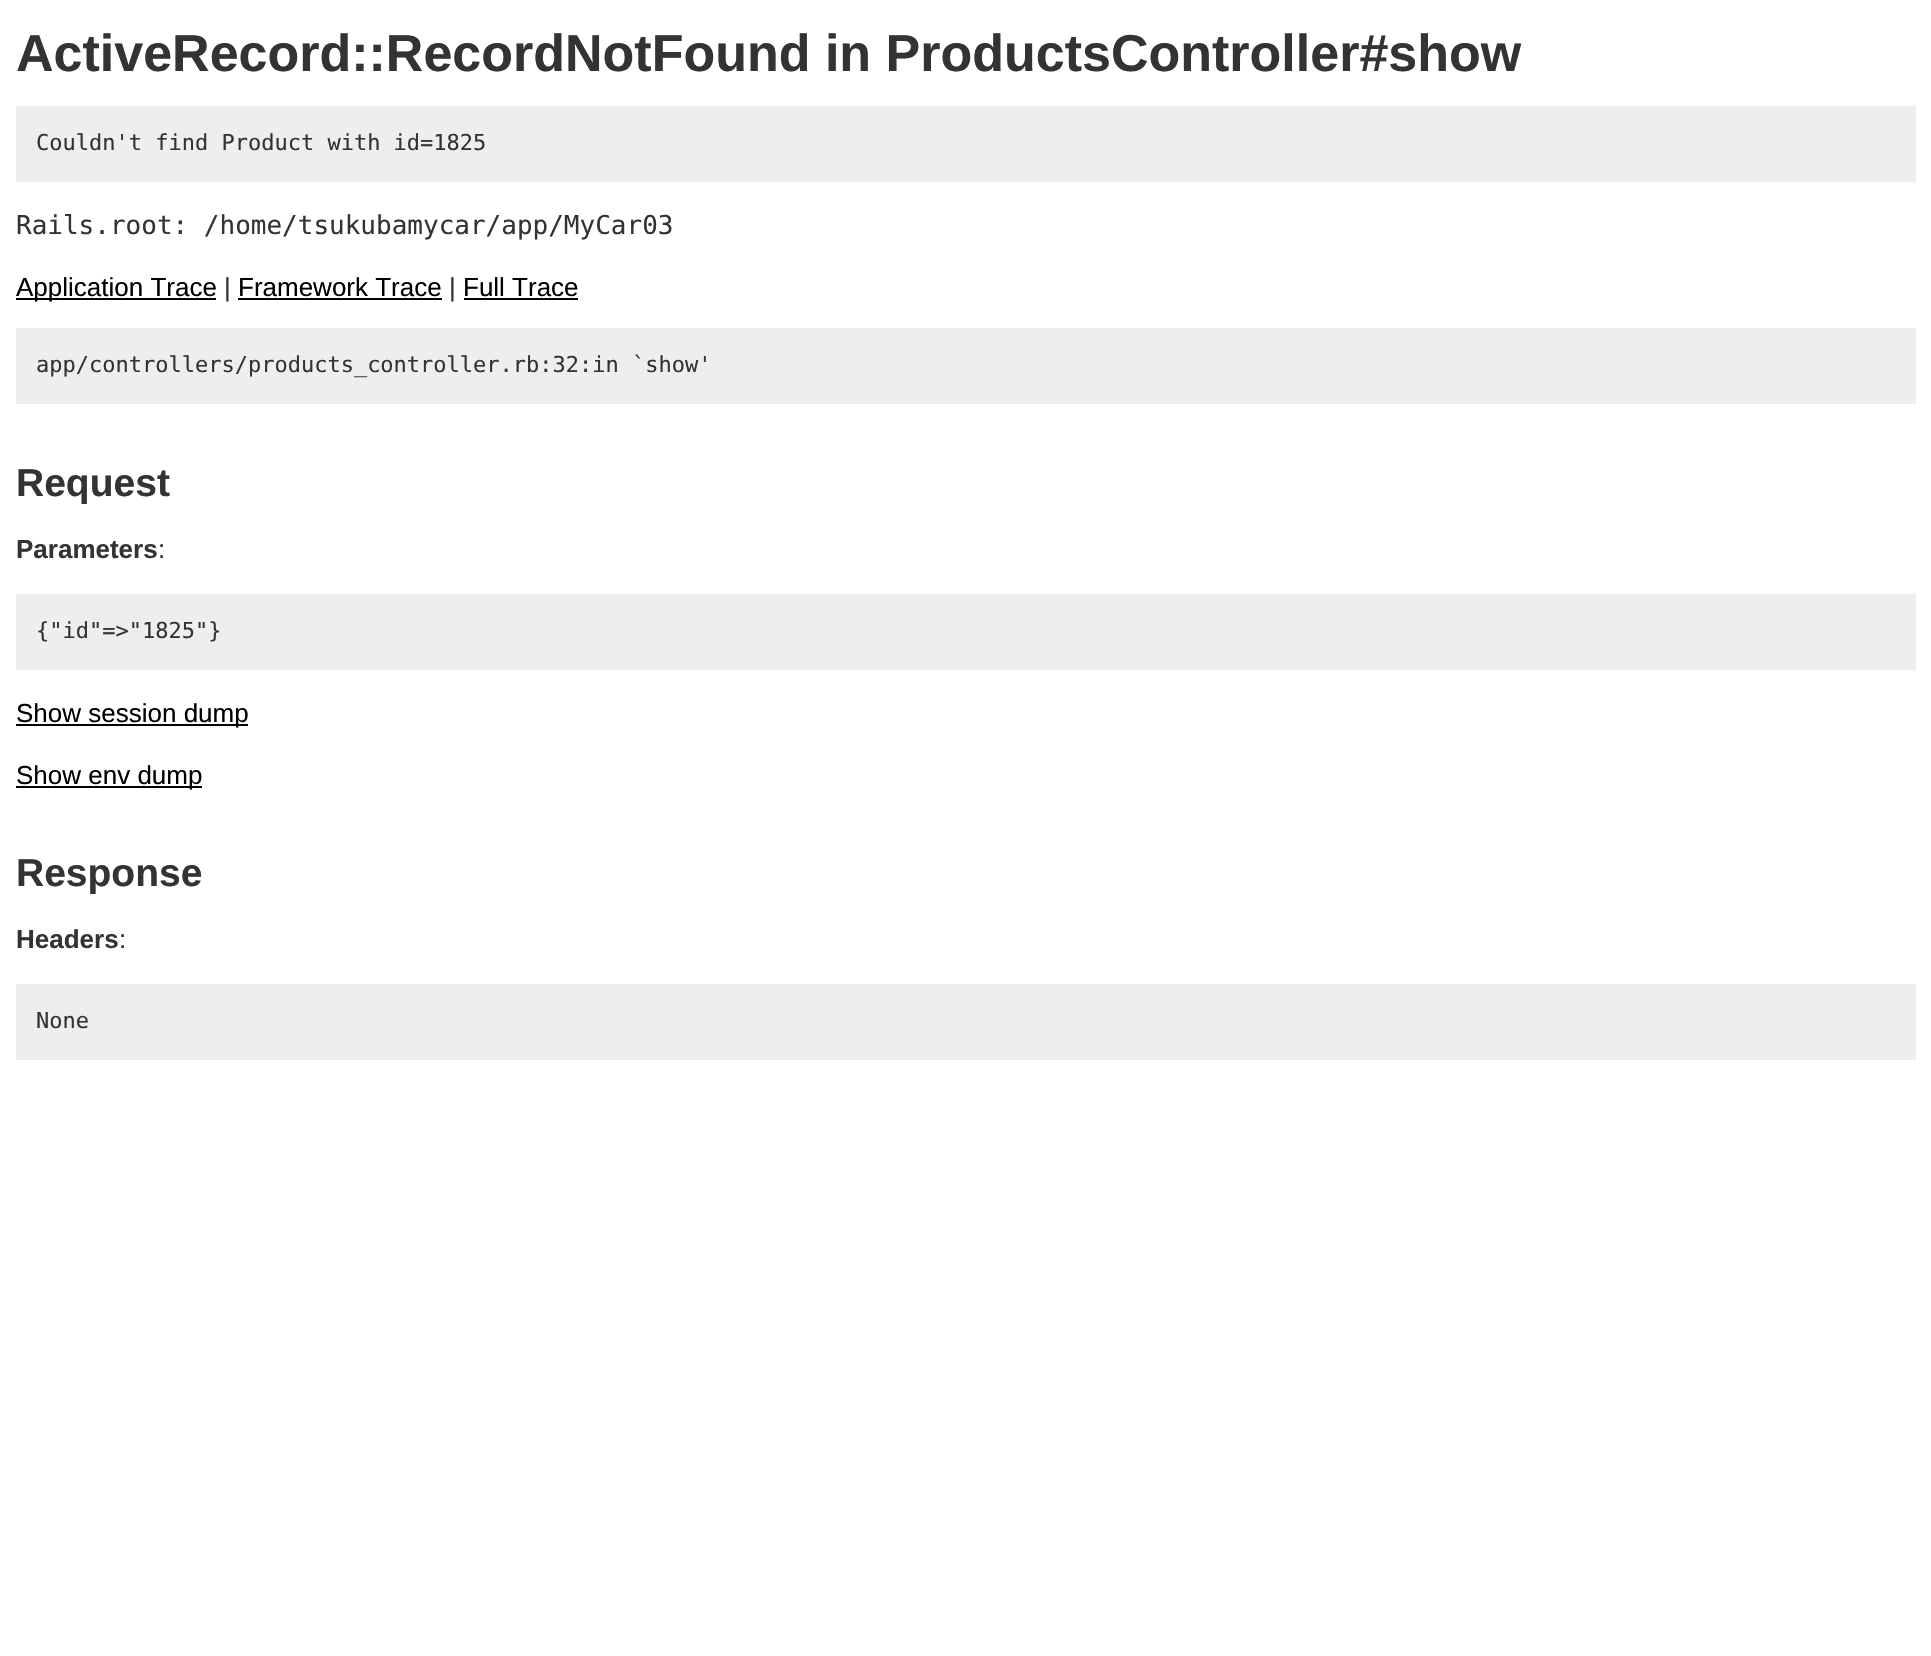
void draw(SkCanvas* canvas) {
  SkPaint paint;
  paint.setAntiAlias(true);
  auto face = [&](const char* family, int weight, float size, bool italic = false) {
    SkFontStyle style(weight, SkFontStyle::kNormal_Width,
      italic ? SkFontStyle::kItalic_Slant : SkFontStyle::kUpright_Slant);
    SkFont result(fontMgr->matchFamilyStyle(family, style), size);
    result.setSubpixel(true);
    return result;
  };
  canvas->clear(0xffffffff);
  {
    const struct { float x, y, w, h; SkColor color; } items[] = {
      {16, 106, 1900, 76, 0xffeeeeee},
      {16, 298, 200, 2, 0xff000000},
      {238, 298, 204, 2, 0xff000000},
      {464, 298, 114, 2, 0xff000000},
      {16, 328, 1900, 76, 0xffeeeeee},
      {16, 594, 1900, 76, 0xffeeeeee},
      {16, 724, 232, 2, 0xff000000},
      {16, 786, 186, 2, 0xff000000},
      {16, 984, 1900, 76, 0xffeeeeee},
    };
    for (auto [x, y, w, h, color] : items) {
      paint.setColor(color);
      canvas->drawRect(SkRect::MakeXYWH(x, y, w, h), paint);
    }
  }
  auto f0 = face("Liberation Sans", 700, 52);
  paint.setColor(0xff333333);
  canvas->drawString("ActiveRecord::RecordNotFound in ProductsController#show", 16, 71, f0, paint);
  auto f1 = face("DejaVu Sans Mono", 400, 22);
  canvas->drawString("Couldn't find Product with id=1825", 36, 150, f1, paint);
  auto f2 = face("DejaVu Sans Mono", 400, 26);
  canvas->drawString("Rails.root: /home/tsukubamycar/app/MyCar03", 16, 234, f2, paint);
  auto f3 = face("Liberation Sans", 400, 26);
  paint.setColor(0xff000000);
  canvas->drawString("Application Trace", 16, 296, f3, paint);
  paint.setColor(0xff333333);
  canvas->drawString("|", 224, 296, f3, paint);
  paint.setColor(0xff000000);
  canvas->drawString("Framework Trace", 238, 296, f3, paint);
  paint.setColor(0xff333333);
  canvas->drawString("|", 449, 296, f3, paint);
  paint.setColor(0xff000000);
  canvas->drawString("Full Trace", 463, 296, f3, paint);
  paint.setColor(0xff333333);
  canvas->drawString("app/controllers/products_controller.rb:32:in `show'", 36, 372, f1, paint);
  auto f4 = face("Liberation Sans", 700, 39);
  canvas->drawString("Request", 16, 496, f4, paint);
  auto f5 = face("Liberation Sans", 700, 26);
  canvas->drawString("Parameters", 16, 558, f5, paint);
  canvas->drawString(":", 158, 558, f3, paint);
  canvas->drawString("{\"id\"=>\"1825\"}", 36, 638, f1, paint);
  paint.setColor(0xff000000);
  canvas->drawString("Show session dump", 16, 722, f3, paint);
  canvas->drawString("Show env dump", 16, 784, f3, paint);
  paint.setColor(0xff333333);
  canvas->drawString("Response", 16, 886, f4, paint);
  canvas->drawString("Headers", 16, 948, f5, paint);
  canvas->drawString(":", 119, 948, f3, paint);
  canvas->drawString("None", 36, 1028, f1, paint);
}
